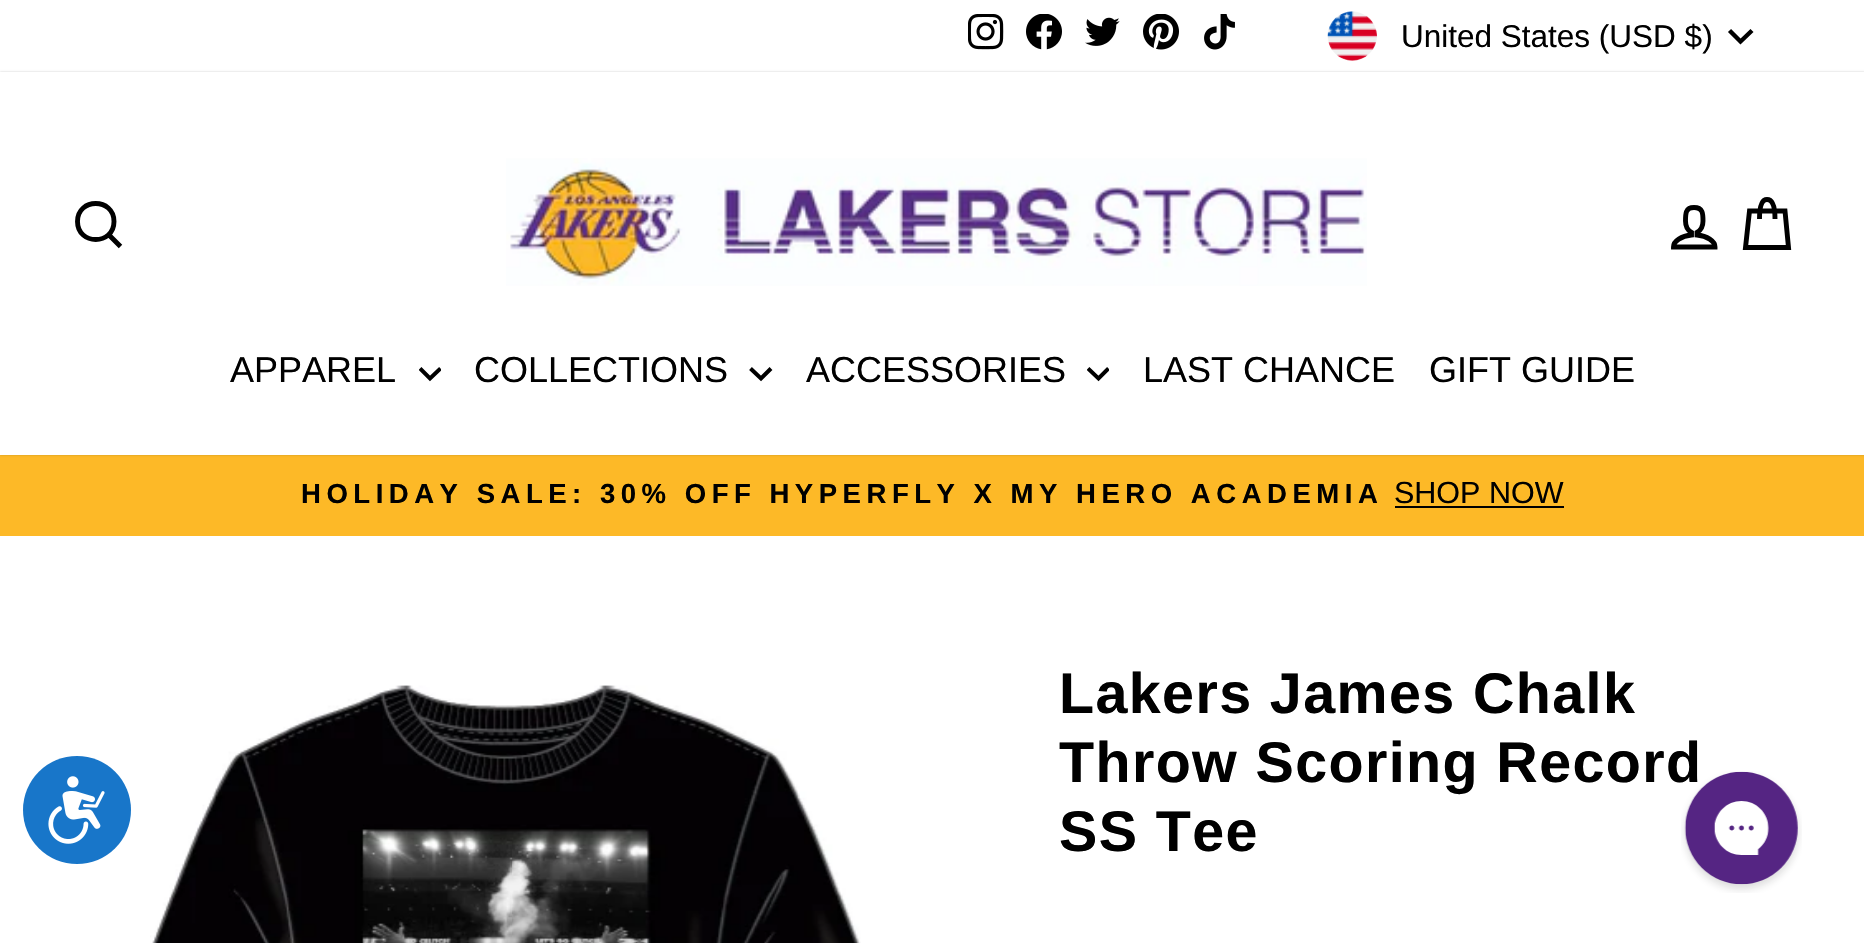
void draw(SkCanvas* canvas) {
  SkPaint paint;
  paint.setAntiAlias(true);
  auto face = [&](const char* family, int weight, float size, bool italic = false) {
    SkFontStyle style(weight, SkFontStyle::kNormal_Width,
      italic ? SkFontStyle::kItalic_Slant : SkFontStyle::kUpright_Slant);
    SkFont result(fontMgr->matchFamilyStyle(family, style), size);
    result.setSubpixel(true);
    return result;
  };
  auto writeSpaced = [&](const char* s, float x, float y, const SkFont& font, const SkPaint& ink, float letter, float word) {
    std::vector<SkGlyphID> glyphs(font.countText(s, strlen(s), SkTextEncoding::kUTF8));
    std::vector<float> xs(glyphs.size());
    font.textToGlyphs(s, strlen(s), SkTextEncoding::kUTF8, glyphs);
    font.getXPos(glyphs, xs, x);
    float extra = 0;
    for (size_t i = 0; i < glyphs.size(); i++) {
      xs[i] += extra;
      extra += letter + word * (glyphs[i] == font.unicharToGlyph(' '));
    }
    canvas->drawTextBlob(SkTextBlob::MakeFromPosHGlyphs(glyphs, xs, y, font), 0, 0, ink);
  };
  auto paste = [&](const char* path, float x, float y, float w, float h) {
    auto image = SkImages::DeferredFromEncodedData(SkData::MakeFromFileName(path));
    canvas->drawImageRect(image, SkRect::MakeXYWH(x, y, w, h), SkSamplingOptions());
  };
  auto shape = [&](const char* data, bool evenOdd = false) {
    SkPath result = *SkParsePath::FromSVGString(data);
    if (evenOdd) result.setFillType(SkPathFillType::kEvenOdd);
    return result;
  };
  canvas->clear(0xffffffff);
  paint.setColor(0xff1876c9);
  canvas->drawCircle(77, 810, 54, paint);
  paste("img/1.png", 48, 776, 57, 68);
  paste("img/2.png", 968, 14, 36, 36);
  paste("img/3.png", 1026, 14, 36, 36);
  paste("img/4.png", 1085, 17, 35, 29);
  paste("img/5.png", 1143, 14, 36, 36);
  paste("img/6.png", 1204, 14, 31, 36);
  paste("img/7.png", 1327, 11, 50, 50);
  paint.setStroke(true);
  paint.setStrokeWidth(4.4f);
  paint.setColor(0xff000000);
  canvas->drawPath(shape("M1729.5 30.5L1740.5 41.5L1752 30.5"), paint);
  paint.setStroke(false);
  paint.setColor(0xfffdb927);
  canvas->drawRect(SkRect::MakeXYWH(0, 455, 1864, 81), paint);
  paint.setColor(0x33000000);
  paint.setMaskFilter(SkMaskFilter::MakeBlur(kNormal_SkBlurStyle, 1));
  canvas->drawRect(SkRect::MakeXYWH(0, 72, 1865, 383), paint);
  paint.setMaskFilter(nullptr);
  paint.setColor(0xffffffff);
  canvas->drawRect(SkRect::MakeXYWH(0, 72, 1864, 383), paint);
  paint.setStroke(true);
  paint.setStrokeWidth(4.9f);
  paint.setColor(0xff000000);
  canvas->drawPath(shape("M114 221.5C114 245.5 77.5 245.5 77.5 221.5C77.5 197.5 114 197.5 114 221.5ZM120.5 246.5L109 235"), paint);
  paste("img/8.png", 506, 158, 861, 128);
  canvas->drawPath(shape("M1697 235V232.5C1700.5 230.5 1703 226 1703 221C1703 213.5 1703 207.5 1694 207.5C1685.5 207.5 1685.5 213.5 1685.5 221C1685.5 226 1688 230.5 1691.5 232.5V235C1681.5 236 1673.5 241 1673.5 247H1715C1715 241 1707 236 1697 235Z"), paint);
  canvas->drawPath(shape("M1759.5 219C1759.5 203.5 1763 199.5 1767 199.5C1771.5 199.5 1775 203.5 1775 219M1749.5 211H1785L1788.5 247.5H1745.5Z"), paint);
  canvas->save();
  canvas->clipRect(SkRect::MakeXYWH(419, 362, 22, 23));
  paint.setStrokeWidth(4);
  canvas->drawPath(shape("M420 368.5L430 378.5L440.5 368.5"), paint);
  canvas->restore();
  canvas->drawPath(shape("M750.5 368.5L761 378.5L771 368.5"), paint);
  canvas->save();
  canvas->clipRect(SkRect::MakeXYWH(1087, 362, 22, 23));
  canvas->drawPath(shape("M1088 368.5L1098.5 378.5L1108.5 368.5"), paint);
  canvas->restore();
  paint.setStroke(false);
  canvas->drawRect(SkRect::MakeXYWH(1395, 506, 169, 2), paint);
  paste("img/9.png", 150, 685, 711, 258);
  auto f0 = face("Liberation Sans", 400, 31.5f);
  canvas->drawString("United States (USD $)", 1401, 47, f0, paint);
  auto f1 = face("Liberation Sans", 400, 36);
  {
    const struct { const char* s; float x, y; } items[] = {
      {"APPAREL", 230, 382},
      {"COLLECTIONS", 474, 382},
      {"ACCESSORIES", 806, 382},
      {"LAST CHANCE", 1143, 382},
      {"GIFT GUIDE", 1429, 382},
    };
    for (auto [s, x, y] : items) {
      canvas->drawString(s, x, y, f1, paint);
    }
  }
  auto f2 = face("Liberation Sans", 700, 27.55f);
  writeSpaced("HOLIDAY SALE: 30% OFF HYPERFLY X MY HERO ACADEMIA", 301, 503, f2, paint, 5.5f, 0);
  auto f3 = face("Liberation Sans", 400, 30.5f);
  canvas->drawString("SHOP NOW", 1394, 503, f3, paint);
  auto f4 = face("Liberation Sans", 700, 57.4f);
  {
    const struct { const char* s; float x, y; } items[] = {
      {"Lakers James Chalk", 1059, 713},
      {"Throw Scoring Record", 1059, 782},
      {"SS Tee", 1059, 851},
    };
    for (auto [s, x, y] : items) {
      writeSpaced(s, x, y, f4, paint, 1.4f, 0);
    }
  }
  paste("img/10.png", 1681, 771, 121, 122);
}
